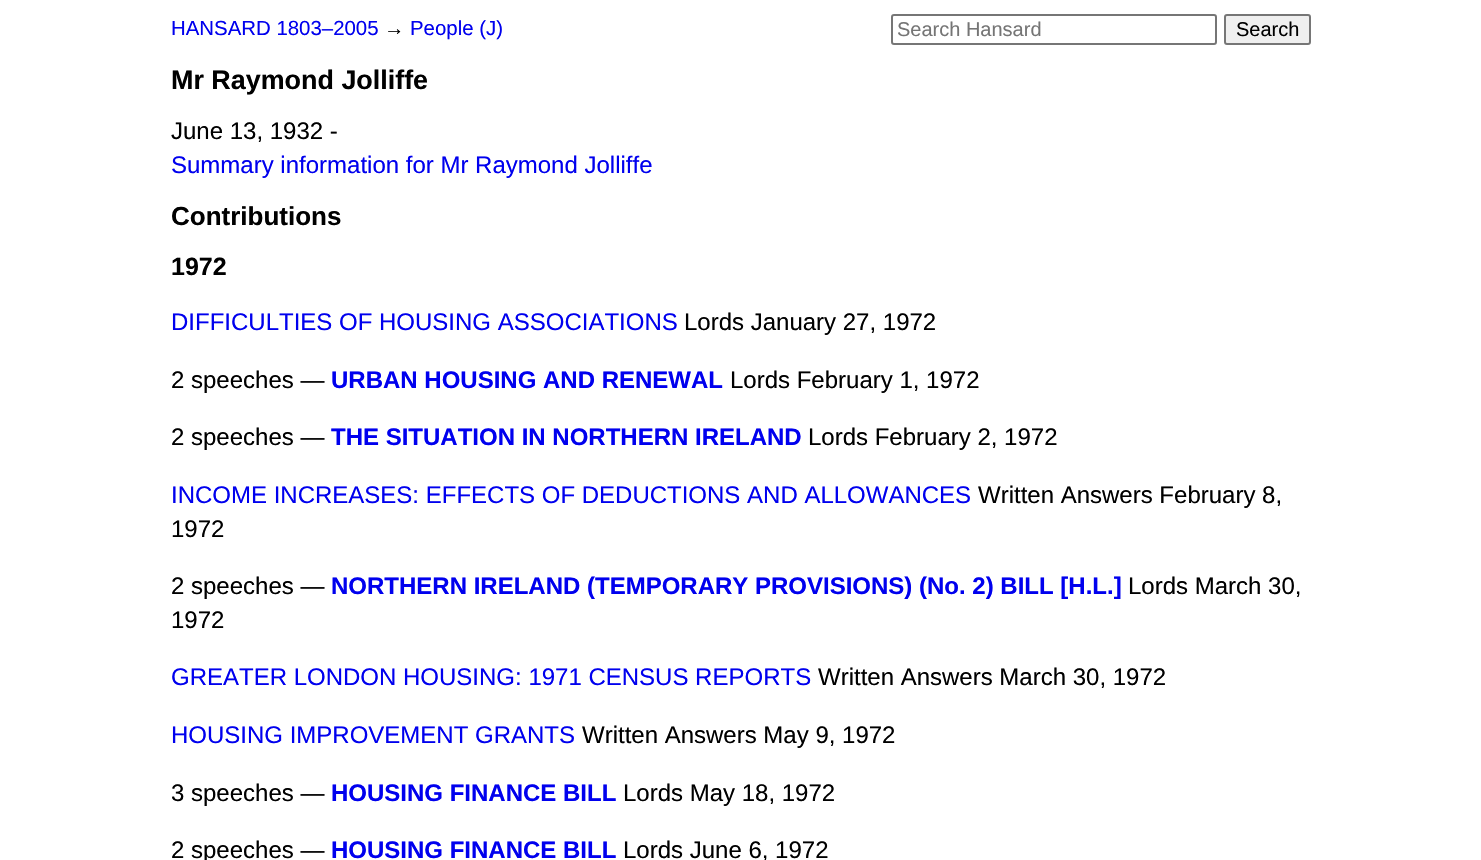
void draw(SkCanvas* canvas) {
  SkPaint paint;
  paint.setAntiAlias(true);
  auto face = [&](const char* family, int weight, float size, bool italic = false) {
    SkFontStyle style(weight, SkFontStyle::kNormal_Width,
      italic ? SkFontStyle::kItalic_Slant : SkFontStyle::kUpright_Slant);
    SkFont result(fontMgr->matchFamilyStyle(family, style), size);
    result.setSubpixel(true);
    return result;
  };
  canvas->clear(0xffffffff);
  paint.setStroke(true);
  paint.setStrokeWidth(2);
  paint.setColor(0xff767676);
  canvas->drawRoundRect(SkRect::MakeXYWH(892, 15, 324, 29), 2, 2, paint);
  paint.setStroke(false);
  paint.setColor(0xffefefef);
  canvas->drawRoundRect(SkRect::MakeXYWH(1225, 15, 85, 29), 2, 2, paint);
  paint.setStroke(true);
  paint.setColor(0xff767676);
  canvas->drawRoundRect(SkRect::MakeXYWH(1225, 15, 85, 29), 2, 2, paint);
  auto f0 = face("Liberation Sans", 400, 20.4f);
  paint.setStroke(false);
  paint.setColor(0xff0000ee);
  canvas->drawString("HANSARD 1803–2005", 171, 35, f0, paint);
  paint.setColor(0xff000000);
  canvas->drawString("→", 384, 35, f0, paint);
  paint.setColor(0xff0000ee);
  canvas->drawString("People (J)", 410, 35, f0, paint);
  auto f1 = face("Liberation Sans", 400, 20);
  paint.setColor(0xff757575);
  canvas->drawString("Search Hansard", 897, 36, f1, paint);
  paint.setColor(0xff000000);
  canvas->drawString("Search", 1236, 36, f1, paint);
  auto f2 = face("Liberation Sans", 700, 26.9f);
  canvas->drawString("Mr Raymond Jolliffe", 171, 89, f2, paint);
  auto f3 = face("Liberation Sans", 400, 24);
  canvas->drawString("June 13, 1932 -", 171, 139, f3, paint);
  paint.setColor(0xff0000ee);
  canvas->drawString("Summary information for Mr Raymond Jolliffe", 171, 173, f3, paint);
  auto f4 = face("Liberation Sans", 700, 26);
  paint.setColor(0xff000000);
  canvas->drawString("Contributions", 171, 225, f4, paint);
  auto f5 = face("Liberation Sans", 700, 25);
  canvas->drawString("1972", 171, 275, f5, paint);
  paint.setColor(0xff0000ee);
  canvas->drawString("DIFFICULTIES OF HOUSING ASSOCIATIONS", 171, 330, f3, paint);
  paint.setColor(0xff000000);
  canvas->drawString("Lords January 27, 1972", 684, 330, f3, paint);
  canvas->drawString("2 speeches —", 171, 388, f3, paint);
  auto f6 = face("Liberation Sans", 700, 24);
  paint.setColor(0xff0000ee);
  canvas->drawString("URBAN HOUSING AND RENEWAL", 331, 388, f6, paint);
  paint.setColor(0xff000000);
  canvas->drawString("Lords February 1, 1972", 730, 388, f3, paint);
  canvas->drawString("2 speeches —", 171, 445, f3, paint);
  paint.setColor(0xff0000ee);
  canvas->drawString("THE SITUATION IN NORTHERN IRELAND", 331, 445, f6, paint);
  paint.setColor(0xff000000);
  canvas->drawString("Lords February 2, 1972", 808, 445, f3, paint);
  paint.setColor(0xff0000ee);
  canvas->drawString("INCOME INCREASES: EFFECTS OF DEDUCTIONS AND ALLOWANCES", 171, 503, f3, paint);
  paint.setColor(0xff000000);
  {
    const struct { const char* s; float x, y; } items[] = {
      {"Written Answers February 8,", 978, 503},
      {"1972", 171, 537},
      {"2 speeches —", 171, 594},
    };
    for (auto [s, x, y] : items) {
      canvas->drawString(s, x, y, f3, paint);
    }
  }
  paint.setColor(0xff0000ee);
  canvas->drawString("NORTHERN IRELAND (TEMPORARY PROVISIONS) (No. 2) BILL [H.L.]", 331, 594, f6, paint);
  paint.setColor(0xff000000);
  canvas->drawString("Lords March 30,", 1128, 594, f3, paint);
  canvas->drawString("1972", 171, 628, f3, paint);
  paint.setColor(0xff0000ee);
  canvas->drawString("GREATER LONDON HOUSING: 1971 CENSUS REPORTS", 171, 685, f3, paint);
  paint.setColor(0xff000000);
  canvas->drawString("Written Answers March 30, 1972", 818, 685, f3, paint);
  paint.setColor(0xff0000ee);
  canvas->drawString("HOUSING IMPROVEMENT GRANTS", 171, 743, f3, paint);
  paint.setColor(0xff000000);
  canvas->drawString("Written Answers May 9, 1972", 582, 743, f3, paint);
  canvas->drawString("3 speeches —", 171, 801, f3, paint);
  paint.setColor(0xff0000ee);
  canvas->drawString("HOUSING FINANCE BILL", 331, 801, f6, paint);
  paint.setColor(0xff000000);
  canvas->drawString("Lords May 18, 1972", 623, 801, f3, paint);
  canvas->drawString("2 speeches —", 171, 858, f3, paint);
  paint.setColor(0xff0000ee);
  canvas->drawString("HOUSING FINANCE BILL", 331, 858, f6, paint);
  paint.setColor(0xff000000);
  canvas->drawString("Lords June 6, 1972", 623, 858, f3, paint);
}
